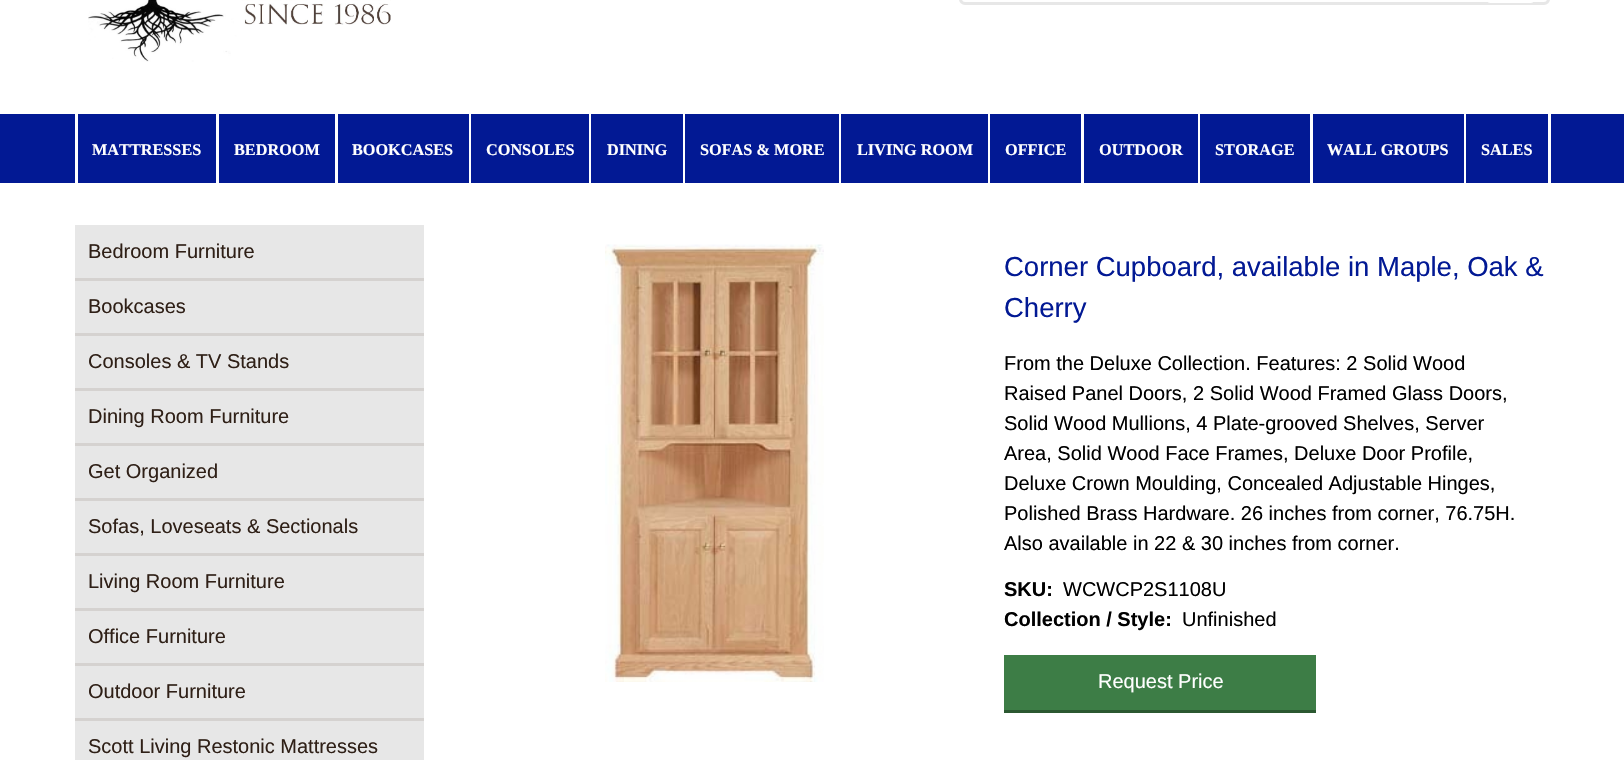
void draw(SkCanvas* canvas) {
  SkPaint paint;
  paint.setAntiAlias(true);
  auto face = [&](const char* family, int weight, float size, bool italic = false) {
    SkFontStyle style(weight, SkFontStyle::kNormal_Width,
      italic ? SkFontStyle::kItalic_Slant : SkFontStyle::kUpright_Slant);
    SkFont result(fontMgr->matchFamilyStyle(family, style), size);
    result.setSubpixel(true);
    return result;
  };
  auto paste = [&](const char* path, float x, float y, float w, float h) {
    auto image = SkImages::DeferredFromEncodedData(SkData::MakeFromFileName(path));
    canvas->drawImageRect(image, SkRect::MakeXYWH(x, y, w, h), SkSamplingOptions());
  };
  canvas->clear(0xffffffff);
  paint.setStroke(true);
  paint.setStrokeWidth(3);
  paint.setColor(0xffe7e7e7);
  canvas->drawRoundRect(SkRect::MakeXYWH(960.5f, -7.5f, 588, 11), 4.5f, 4.5f, paint);
  paint.setStroke(false);
  paint.setColor(0xffffffff);
  canvas->drawRoundRect(SkRect::MakeXYWH(1486, -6, 49, 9), 6, 6, paint);
  paste("img/1.png", 88, 0, 303, 62);
  {
    const struct { float x, y, w, h; SkColor color; } items[] = {
      {0, 114, 1624, 69, 0xff021994},
      {216, 114, 3, 69, 0xffffffff},
      {75, 114, 3, 69, 0xffffffff},
      {335, 114, 3, 69, 0xffffffff},
      {469, 114, 2, 69, 0xffffffff},
      {589, 114, 2, 69, 0xffffffff},
      {683, 114, 2, 69, 0xffffffff},
      {839, 114, 2, 69, 0xffffffff},
      {988, 114, 2, 69, 0xffffffff},
      {1081, 114, 3, 69, 0xffffffff},
      {1198, 114, 2, 69, 0xffffffff},
      {1310, 114, 3, 69, 0xffffffff},
      {1464, 114, 2, 69, 0xffffffff},
      {1548, 114, 3, 69, 0xffffffff},
      {75, 225, 349, 535, 0xffe7e7e7},
      {75, 278, 349, 3, 0xffd5d2d0},
      {75, 333, 349, 3, 0xffd5d2d0},
      {75, 388, 349, 3, 0xffd5d2d0},
      {75, 443, 349, 3, 0xffd5d2d0},
      {75, 498, 349, 3, 0xffd5d2d0},
      {75, 553, 349, 3, 0xffd5d2d0},
      {75, 608, 349, 3, 0xffd5d2d0},
      {75, 663, 349, 3, 0xffd5d2d0},
      {75, 718, 349, 3, 0xffd5d2d0},
    };
    for (auto [x, y, w, h, color] : items) {
      paint.setColor(color);
      canvas->drawRect(SkRect::MakeXYWH(x, y, w, h), paint);
    }
  }
  paste("img/2.png", 605, 244, 219, 438);
  paint.setColor(0xff3d7d46);
  canvas->drawRect(SkRect::MakeXYWH(1004, 655, 312, 55), paint);
  paint.setColor(0xff2b5831);
  canvas->drawRect(SkRect::MakeXYWH(1004, 710, 312, 3), paint);
  auto f0 = face("Liberation Serif", 700, 16.25f);
  paint.setColor(0xffffffff);
  {
    const struct { const char* s; float x, y; } items[] = {
      {"MATTRESSES", 92, 155},
      {"BEDROOM", 234, 155},
      {"BOOKCASES", 352, 155},
      {"CONSOLES", 486, 155},
      {"DINING", 607, 155},
      {"SOFAS & MORE", 700, 155},
      {"LIVING ROOM", 857, 155},
      {"OFFICE", 1005, 155},
      {"OUTDOOR", 1099, 155},
      {"STORAGE", 1215, 155},
      {"WALL GROUPS", 1327, 155},
      {"SALES", 1481, 155},
    };
    for (auto [s, x, y] : items) {
      canvas->drawString(s, x, y, f0, paint);
    }
  }
  auto f1 = face("Liberation Sans", 400, 20);
  paint.setColor(0xff2f2017);
  {
    const struct { const char* s; float x, y; } items[] = {
      {"Bedroom Furniture", 88, 258},
      {"Bookcases", 88, 313},
      {"Consoles & TV Stands", 88, 368},
      {"Dining Room Furniture", 88, 423},
      {"Get Organized", 88, 478},
      {"Sofas, Loveseats & Sectionals", 88, 533},
      {"Living Room Furniture", 88, 588},
      {"Office Furniture", 88, 643},
      {"Outdoor Furniture", 88, 698},
      {"Scott Living Restonic Mattresses", 88, 753},
    };
    for (auto [s, x, y] : items) {
      canvas->drawString(s, x, y, f1, paint);
    }
  }
  auto f2 = face("Liberation Sans", 400, 27.5f);
  paint.setColor(0xff021994);
  canvas->drawString("Corner Cupboard, available in Maple, Oak &", 1004, 276, f2, paint);
  canvas->drawString("Cherry", 1004, 317, f2, paint);
  paint.setColor(0xff000000);
  {
    const struct { const char* s; float x, y; } items[] = {
      {"From the Deluxe Collection. Features: 2 Solid Wood", 1004, 370},
      {"Raised Panel Doors, 2 Solid Wood Framed Glass Doors,", 1004, 400},
      {"Solid Wood Mullions, 4 Plate-grooved Shelves, Server", 1004, 430},
      {"Area, Solid Wood Face Frames, Deluxe Door Profile,", 1004, 460},
      {"Deluxe Crown Moulding, Concealed Adjustable Hinges,", 1004, 490},
      {"Polished Brass Hardware. 26 inches from corner, 76.75H.", 1004, 520},
      {"Also available in 22 & 30 inches from corner.", 1004, 550},
    };
    for (auto [s, x, y] : items) {
      canvas->drawString(s, x, y, f1, paint);
    }
  }
  auto f3 = face("Liberation Sans", 700, 20);
  canvas->drawString("SKU:", 1004, 596, f3, paint);
  canvas->drawString("WCWCP2S1108U", 1063, 596, f1, paint);
  canvas->drawString("Collection / Style:", 1004, 626, f3, paint);
  canvas->drawString("Unfinished", 1182, 626, f1, paint);
  paint.setColor(0xffffffff);
  canvas->drawString("Request Price", 1098, 688, f1, paint);
}
